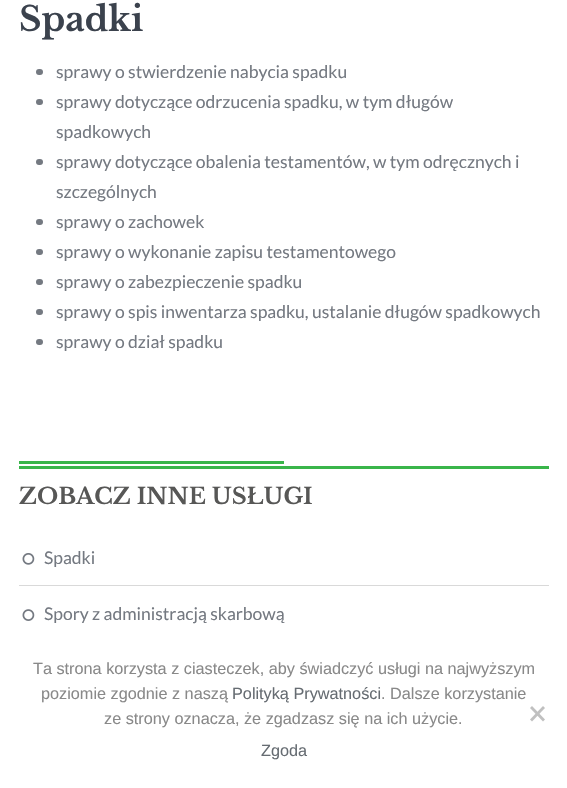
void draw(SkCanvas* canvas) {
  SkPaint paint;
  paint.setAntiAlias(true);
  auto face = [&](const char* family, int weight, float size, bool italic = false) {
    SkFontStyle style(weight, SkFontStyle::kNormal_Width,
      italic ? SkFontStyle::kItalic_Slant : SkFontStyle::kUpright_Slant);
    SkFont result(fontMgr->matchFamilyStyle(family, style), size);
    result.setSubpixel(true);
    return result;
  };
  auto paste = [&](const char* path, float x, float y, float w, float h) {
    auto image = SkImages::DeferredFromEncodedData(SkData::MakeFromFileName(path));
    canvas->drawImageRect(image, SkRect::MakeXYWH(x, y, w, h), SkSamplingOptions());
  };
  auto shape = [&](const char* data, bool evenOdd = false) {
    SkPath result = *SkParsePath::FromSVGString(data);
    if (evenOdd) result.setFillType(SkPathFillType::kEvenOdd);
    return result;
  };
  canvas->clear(0xffffffff);
  paint.setColor(0xff747981);
  canvas->drawRoundRect(SkRect::MakeXYWH(36, 69, 7, 6), 3, 3, paint);
  canvas->drawRoundRect(SkRect::MakeXYWH(36, 99, 7, 6), 3, 3, paint);
  canvas->drawRoundRect(SkRect::MakeXYWH(36, 159, 7, 6), 3, 3, paint);
  canvas->drawRoundRect(SkRect::MakeXYWH(36, 219, 7, 6), 3, 3, paint);
  canvas->drawRoundRect(SkRect::MakeXYWH(36, 249, 7, 6), 3, 3, paint);
  canvas->drawRoundRect(SkRect::MakeXYWH(36, 279, 7, 6), 3, 3, paint);
  canvas->drawRoundRect(SkRect::MakeXYWH(36, 309, 7, 6), 3, 3, paint);
  canvas->drawRoundRect(SkRect::MakeXYWH(36, 339, 7, 6), 3, 3, paint);
  paint.setColor(0xff39b54a);
  canvas->drawRect(SkRect::MakeXYWH(19, 461, 265, 3), paint);
  canvas->drawRect(SkRect::MakeXYWH(19, 466, 530, 3), paint);
  paste("img/1.png", 22, 553, 13, 12);
  paint.setColor(0xffd9d9d9);
  canvas->drawRect(SkRect::MakeXYWH(19, 585, 530, 1), paint);
  paste("img/2.png", 22, 609, 13, 12);
  paint.setColor(0xffc0c0c0);
  canvas->drawPath(shape("M543 706L545 708L532 721.5L530 719.5Z"), paint);
  canvas->drawPath(shape("M530 708L532 706L545 719.5L543 721.5Z"), paint);
  auto f0 = face("Libre Baskerville", 700, 34);
  paint.setColor(0xff3b424d);
  canvas->drawString("Spadki", 19, 31, f0, paint);
  auto f1 = face("Lato", 400, 17.5f);
  paint.setColor(0xff747981);
  {
    const struct { const char* s; float x, y; } items[] = {
      {"sprawy o stwierdzenie nabycia spadku", 56, 78},
      {"sprawy dotyczące odrzucenia spadku, w tym długów", 56, 108},
      {"spadkowych", 56, 138},
      {"sprawy dotyczące obalenia testamentów, w tym odręcznych i", 56, 168},
      {"szczególnych", 56, 198},
      {"sprawy o zachowek", 56, 228},
      {"sprawy o wykonanie zapisu testamentowego", 56, 258},
      {"sprawy o zabezpieczenie spadku", 56, 288},
      {"sprawy o spis inwentarza spadku, ustalanie długów spadkowych", 56, 318},
      {"sprawy o dział spadku", 56, 348},
    };
    for (auto [s, x, y] : items) {
      canvas->drawString(s, x, y, f1, paint);
    }
  }
  auto f2 = face("Libre Baskerville", 700, 22.5f);
  paint.setColor(0xff575756);
  canvas->drawString("ZOBACZ INNE USŁUGI", 19, 504, f2, paint);
  paint.setColor(0xff747981);
  canvas->drawString("Spadki", 44, 564, f1, paint);
  canvas->drawString("Spory z administracją skarbową", 44, 620, f1, paint);
  auto f3 = face("Liberation Sans", 400, 16.25f);
  paint.setColor(0xff898989);
  canvas->drawString("Ta strona korzysta z ciasteczek, aby świadczyć usługi na najwyższym", 33, 674, f3, paint);
  canvas->drawString("poziomie zgodnie z naszą", 41, 699, f3, paint);
  paint.setColor(0xff666c72);
  canvas->drawString("Polityką Prywatności", 232, 699, f3, paint);
  paint.setColor(0xff898989);
  canvas->drawString(". Dalsze korzystanie", 381, 699, f3, paint);
  canvas->drawString("ze strony oznacza, że zgadzasz się na ich użycie.", 104, 724, f3, paint);
  paint.setColor(0xff666c72);
  canvas->drawString("Zgoda", 261, 756, f3, paint);
}
